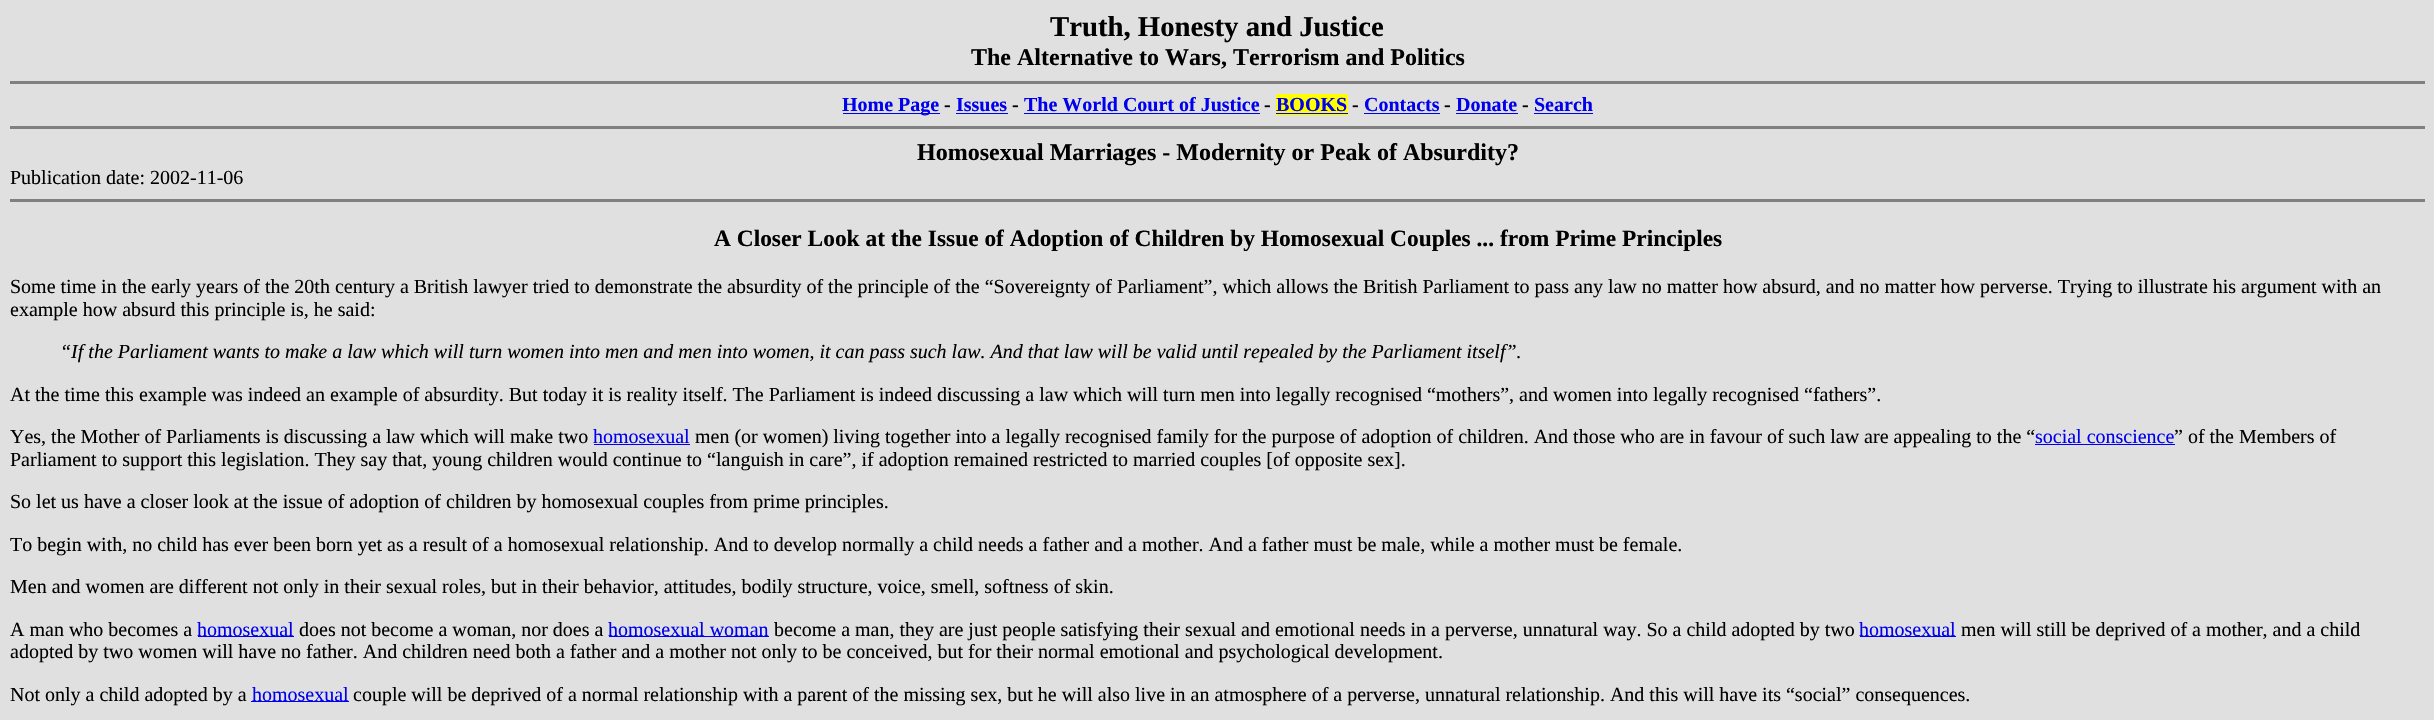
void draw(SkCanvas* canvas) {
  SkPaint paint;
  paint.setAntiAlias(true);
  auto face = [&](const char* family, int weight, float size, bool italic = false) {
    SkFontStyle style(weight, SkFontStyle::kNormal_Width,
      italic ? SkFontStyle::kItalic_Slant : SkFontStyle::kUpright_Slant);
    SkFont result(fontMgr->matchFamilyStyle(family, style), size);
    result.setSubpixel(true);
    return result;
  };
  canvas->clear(0xffe0e0e0);
  {
    const struct { float x, y, w, h; SkColor color; } items[] = {
      {10, 81, 2415, 3, 0xff808080},
      {843, 113, 97, 1, 0xff0000ee},
      {956, 113, 52, 1, 0xff0000ee},
      {1024, 113, 236, 1, 0xff0000ee},
      {1276, 94, 72, 21, 0xffffff00},
      {1276, 113, 72, 1, 0xff0000ee},
      {1364, 113, 76, 1, 0xff0000ee},
      {1456, 113, 62, 1, 0xff0000ee},
      {1534, 113, 59, 1, 0xff0000ee},
      {10, 126, 2415, 3, 0xff808080},
      {10, 199, 2415, 3, 0xff808080},
      {594, 444, 96, 1, 0xff0000ee},
      {2035, 444, 140, 1, 0xff0000ee},
      {198, 636, 96, 1, 0xff0000ee},
      {609, 636, 160, 1, 0xff0000ee},
      {1860, 636, 96, 1, 0xff0000ee},
      {251, 701, 98, 1, 0xff0000ee},
    };
    for (auto [x, y, w, h, color] : items) {
      paint.setColor(color);
      canvas->drawRect(SkRect::MakeXYWH(x, y, w, h), paint);
    }
  }
  auto f0 = face("Liberation Serif", 700, 28.75f);
  paint.setColor(0xff000000);
  canvas->drawString("Truth, Honesty and Justice", 1050, 36, f0, paint);
  auto f1 = face("Liberation Serif", 700, 24);
  canvas->drawString("The Alternative to Wars, Terrorism and Politics", 971, 65, f1, paint);
  auto f2 = face("Liberation Serif", 700, 20);
  paint.setColor(0xff0000ee);
  canvas->drawString("Home Page", 842, 111, f2, paint);
  paint.setColor(0xff000000);
  canvas->drawString("-", 944, 111, f2, paint);
  paint.setColor(0xff0000ee);
  canvas->drawString("Issues", 956, 111, f2, paint);
  paint.setColor(0xff000000);
  canvas->drawString("-", 1012, 111, f2, paint);
  paint.setColor(0xff0000ee);
  canvas->drawString("The World Court of Justice", 1024, 111, f2, paint);
  paint.setColor(0xff000000);
  canvas->drawString("-", 1264, 111, f2, paint);
  paint.setColor(0xff0000ee);
  canvas->drawString("BOOKS", 1276, 111, f2, paint);
  paint.setColor(0xff000000);
  canvas->drawString("-", 1352, 111, f2, paint);
  paint.setColor(0xff0000ee);
  canvas->drawString("Contacts", 1364, 111, f2, paint);
  paint.setColor(0xff000000);
  canvas->drawString("-", 1444, 111, f2, paint);
  paint.setColor(0xff0000ee);
  canvas->drawString("Donate", 1456, 111, f2, paint);
  paint.setColor(0xff000000);
  canvas->drawString("-", 1522, 111, f2, paint);
  paint.setColor(0xff0000ee);
  canvas->drawString("Search", 1534, 111, f2, paint);
  paint.setColor(0xff000000);
  canvas->drawString("Homosexual Marriages - Modernity or Peak of Absurdity?", 917, 160, f1, paint);
  auto f3 = face("Liberation Serif", 400, 20);
  canvas->drawString("Publication date: 2002-11-06", 10, 184, f3, paint);
  auto f4 = face("Liberation Serif", 700, 23.4f);
  canvas->drawString("A Closer Look at the Issue of Adoption of Children by Homosexual Couples ... from Prime Principles", 714, 246, f4, paint);
  canvas->drawString("Some time in the early years of the 20th century a British lawyer tried to demonstrate the absurdity of the principle of the “Sovereignty of Parliament”, which allows the British Parliament to pass any law no matter how absurd, and no matter how perverse. Trying to illustrate his argument with an", 10, 293, f3, paint);
  canvas->drawString("example how absurd this principle is, he said:", 10, 316, f3, paint);
  auto f5 = face("Liberation Serif", 400, 20, true);
  canvas->drawString("“If the Parliament wants to make a law which will turn women into men and men into women, it can pass such law. And that law will be valid until repealed by the Parliament itself”.", 60, 358, f5, paint);
  canvas->drawString("At the time this example was indeed an example of absurdity. But today it is reality itself. The Parliament is indeed discussing a law which will turn men into legally recognised “mothers”, and women into legally recognised “fathers”.", 10, 401, f3, paint);
  canvas->drawString("Yes, the Mother of Parliaments is discussing a law which will make two", 10, 443, f3, paint);
  paint.setColor(0xff0000ee);
  canvas->drawString("homosexual", 593, 443, f3, paint);
  paint.setColor(0xff000000);
  canvas->drawString("men (or women) living together into a legally recognised family for the purpose of adoption of children. And those who are in favour of such law are appealing to the “", 695, 443, f3, paint);
  paint.setColor(0xff0000ee);
  canvas->drawString("social conscience", 2035, 443, f3, paint);
  paint.setColor(0xff000000);
  {
    const struct { const char* s; float x, y; } items[] = {
      {"” of the Members of", 2174, 443},
      {"Parliament to support this legislation. They say that, young children would continue to “languish in care”, if adoption remained restricted to married couples [of opposite sex].", 10, 466},
      {"So let us have a closer look at the issue of adoption of children by homosexual couples from prime principles.", 10, 508},
      {"To begin with, no child has ever been born yet as a result of a homosexual relationship. And to develop normally a child needs a father and a mother. And a father must be male, while a mother must be female.", 10, 551},
      {"Men and women are different not only in their sexual roles, but in their behavior, attitudes, bodily structure, voice, smell, softness of skin.", 10, 593},
      {"A man who becomes a", 10, 636},
    };
    for (auto [s, x, y] : items) {
      canvas->drawString(s, x, y, f3, paint);
    }
  }
  paint.setColor(0xff0000ee);
  canvas->drawString("homosexual", 197, 636, f3, paint);
  paint.setColor(0xff000000);
  canvas->drawString("does not become a woman, nor does a", 299, 636, f3, paint);
  paint.setColor(0xff0000ee);
  canvas->drawString("homosexual woman", 608, 636, f3, paint);
  paint.setColor(0xff000000);
  canvas->drawString("become a man, they are just people satisfying their sexual and emotional needs in a perverse, unnatural way. So a child adopted by two", 774, 636, f3, paint);
  paint.setColor(0xff0000ee);
  canvas->drawString("homosexual", 1859, 636, f3, paint);
  paint.setColor(0xff000000);
  {
    const struct { const char* s; float x, y; } items[] = {
      {"men will still be deprived of a mother, and a child", 1961, 636},
      {"adopted by two women will have no father. And children need both a father and a mother not only to be conceived, but for their normal emotional and psychological development.", 10, 658},
      {"Not only a child adopted by a", 10, 701},
    };
    for (auto [s, x, y] : items) {
      canvas->drawString(s, x, y, f3, paint);
    }
  }
  paint.setColor(0xff0000ee);
  canvas->drawString("homosexual", 252, 701, f3, paint);
  paint.setColor(0xff000000);
  canvas->drawString("couple will be deprived of a normal relationship with a parent of the missing sex, but he will also live in an atmosphere of a perverse, unnatural relationship. And this will have its “social” consequences.", 353, 701, f3, paint);
}
